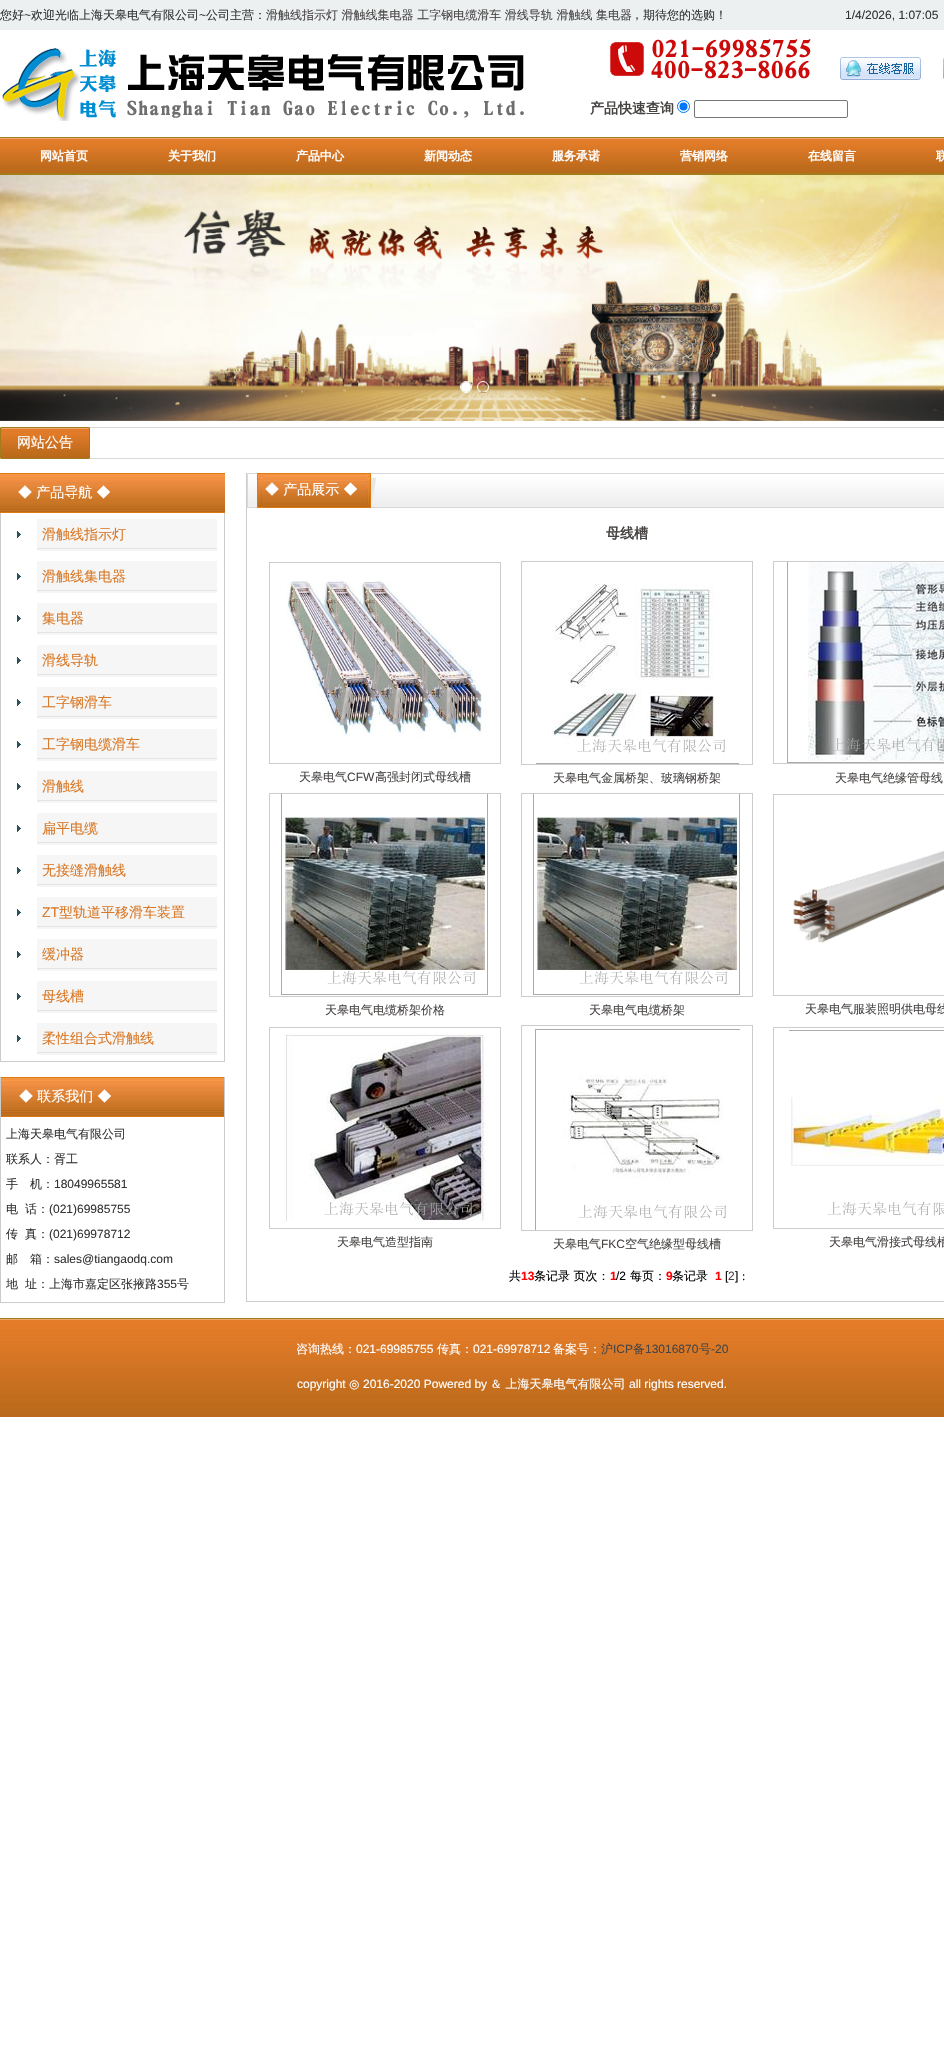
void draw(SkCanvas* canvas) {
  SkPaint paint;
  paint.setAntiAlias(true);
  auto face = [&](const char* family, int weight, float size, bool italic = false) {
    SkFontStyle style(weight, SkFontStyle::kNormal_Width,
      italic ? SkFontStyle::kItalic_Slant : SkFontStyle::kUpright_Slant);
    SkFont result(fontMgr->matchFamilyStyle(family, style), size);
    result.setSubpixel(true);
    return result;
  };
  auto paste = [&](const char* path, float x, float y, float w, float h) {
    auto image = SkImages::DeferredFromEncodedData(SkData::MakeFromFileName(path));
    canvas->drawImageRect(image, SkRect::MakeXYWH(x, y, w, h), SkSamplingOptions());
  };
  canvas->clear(0xffffffff);
  paint.setColor(0xffecf0f1);
  canvas->drawRect(SkRect::MakeXYWH(0, 0, 944, 30), paint);
  paste("img/1.png", 2, 48, 114, 73);
  paste("img/2.png", 127, 54, 397, 64);
  paste("img/3.png", 610, 39, 201, 40);
  paste("img/4.png", 840, 57, 81, 23);
  paste("img/5.png", 943, 58, 1, 21);
  paint.setStroke(true);
  paint.setStrokeWidth(1);
  paint.setColor(0xff0075ff);
  canvas->drawCircle(683.5f, 106.5f, 6, paint);
  paint.setStroke(false);
  canvas->drawCircle(683.5f, 106.5f, 4, paint);
  paint.setStroke(true);
  paint.setColor(0xff767676);
  canvas->drawRoundRect(SkRect::MakeXYWH(694.5f, 100.5f, 153, 17), 1.5f, 1.5f, paint);
  paste("img/6.png", 0, 137, 944, 38);
  paste("img/7.png", 0, 175, 944, 246);
  paint.setColor(0xffffffff);
  canvas->drawCircle(466, 387, 5.5f, paint);
  paint.setStroke(false);
  canvas->drawCircle(466, 387, 5, paint);
  paint.setStroke(true);
  canvas->drawCircle(483, 387, 5.5f, paint);
  paste("img/8.png", 0, 427, 90, 32);
  paint.setStroke(false);
  paint.setColor(0xffd9d9d9);
  canvas->drawRect(SkRect::MakeXYWH(90, 427, 854, 1), paint);
  canvas->drawRect(SkRect::MakeXYWH(90, 458, 854, 1), paint);
  paste("img/9.png", 0, 473, 225, 40);
  {
    const struct { float x, y, w, h; SkColor color; } items[] = {
      {224, 513, 1, 549, 0xffcccccc},
      {0, 1061, 225, 1, 0xffcccccc},
      {0, 513, 1, 549, 0xffcccccc},
    };
    for (auto [x, y, w, h, color] : items) {
      paint.setColor(color);
      canvas->drawRect(SkRect::MakeXYWH(x, y, w, h), paint);
    }
  }
  paste("img/10.png", 17, 531, 4, 7);
  paint.setColor(0xfff6f6f6);
  canvas->drawRect(SkRect::MakeXYWH(37, 519, 180, 32), paint);
  paint.setColor(0xffe3e3e3);
  canvas->drawRect(SkRect::MakeXYWH(37, 548, 180, 1), paint);
  paste("img/10.png", 17, 573, 4, 7);
  paint.setColor(0xfff6f6f6);
  canvas->drawRect(SkRect::MakeXYWH(37, 561, 180, 32), paint);
  paint.setColor(0xffe3e3e3);
  canvas->drawRect(SkRect::MakeXYWH(37, 590, 180, 1), paint);
  paste("img/10.png", 17, 615, 4, 7);
  paint.setColor(0xfff6f6f6);
  canvas->drawRect(SkRect::MakeXYWH(37, 603, 180, 32), paint);
  paint.setColor(0xffe3e3e3);
  canvas->drawRect(SkRect::MakeXYWH(37, 632, 180, 1), paint);
  paste("img/10.png", 17, 657, 4, 7);
  paint.setColor(0xfff6f6f6);
  canvas->drawRect(SkRect::MakeXYWH(37, 645, 180, 32), paint);
  paint.setColor(0xffe3e3e3);
  canvas->drawRect(SkRect::MakeXYWH(37, 674, 180, 1), paint);
  paste("img/10.png", 17, 699, 4, 7);
  paint.setColor(0xfff6f6f6);
  canvas->drawRect(SkRect::MakeXYWH(37, 687, 180, 32), paint);
  paint.setColor(0xffe3e3e3);
  canvas->drawRect(SkRect::MakeXYWH(37, 716, 180, 1), paint);
  paste("img/10.png", 17, 741, 4, 7);
  paint.setColor(0xfff6f6f6);
  canvas->drawRect(SkRect::MakeXYWH(37, 729, 180, 32), paint);
  paint.setColor(0xffe3e3e3);
  canvas->drawRect(SkRect::MakeXYWH(37, 758, 180, 1), paint);
  paste("img/10.png", 17, 783, 4, 7);
  paint.setColor(0xfff6f6f6);
  canvas->drawRect(SkRect::MakeXYWH(37, 771, 180, 32), paint);
  paint.setColor(0xffe3e3e3);
  canvas->drawRect(SkRect::MakeXYWH(37, 800, 180, 1), paint);
  paste("img/10.png", 17, 825, 4, 7);
  paint.setColor(0xfff6f6f6);
  canvas->drawRect(SkRect::MakeXYWH(37, 813, 180, 32), paint);
  paint.setColor(0xffe3e3e3);
  canvas->drawRect(SkRect::MakeXYWH(37, 842, 180, 1), paint);
  paste("img/10.png", 17, 867, 4, 7);
  paint.setColor(0xfff6f6f6);
  canvas->drawRect(SkRect::MakeXYWH(37, 855, 180, 32), paint);
  paint.setColor(0xffe3e3e3);
  canvas->drawRect(SkRect::MakeXYWH(37, 884, 180, 1), paint);
  paste("img/10.png", 17, 909, 4, 7);
  paint.setColor(0xfff6f6f6);
  canvas->drawRect(SkRect::MakeXYWH(37, 897, 180, 32), paint);
  paint.setColor(0xffe3e3e3);
  canvas->drawRect(SkRect::MakeXYWH(37, 926, 180, 1), paint);
  paste("img/10.png", 17, 951, 4, 7);
  paint.setColor(0xfff6f6f6);
  canvas->drawRect(SkRect::MakeXYWH(37, 939, 180, 32), paint);
  paint.setColor(0xffe3e3e3);
  canvas->drawRect(SkRect::MakeXYWH(37, 968, 180, 1), paint);
  paste("img/10.png", 17, 993, 4, 7);
  paint.setColor(0xfff6f6f6);
  canvas->drawRect(SkRect::MakeXYWH(37, 981, 180, 32), paint);
  paint.setColor(0xffe3e3e3);
  canvas->drawRect(SkRect::MakeXYWH(37, 1010, 180, 1), paint);
  paste("img/10.png", 17, 1035, 4, 7);
  {
    const struct { float x, y, w, h; SkColor color; } items[] = {
      {37, 1023, 180, 32, 0xfff6f6f6},
      {37, 1052, 180, 1, 0xffe3e3e3},
      {224, 1077, 1, 226, 0xffcccccc},
      {0, 1302, 225, 1, 0xffcccccc},
      {0, 1077, 1, 226, 0xffcccccc},
    };
    for (auto [x, y, w, h, color] : items) {
      paint.setColor(color);
      canvas->drawRect(SkRect::MakeXYWH(x, y, w, h), paint);
    }
  }
  paste("img/11.png", 1, 1077, 223, 40);
  canvas->drawRect(SkRect::MakeXYWH(246, 1301, 698, 1), paint);
  canvas->drawRect(SkRect::MakeXYWH(246, 473, 1, 829), paint);
  paste("img/12.png", 247, 473, 697, 35);
  paint.setStroke(true);
  canvas->drawRect(SkRect::MakeXYWH(269.5f, 562.5f, 231, 201), paint);
  paste("img/13.png", 287, 580, 200, 160);
  canvas->drawRect(SkRect::MakeXYWH(521.5f, 561.5f, 231, 203), paint);
  paste("img/14.png", 536, 584, 203, 180);
  canvas->drawRect(SkRect::MakeXYWH(773.5f, 561.5f, 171, 202), paint);
  paste("img/15.png", 787, 562, 157, 201);
  canvas->drawRect(SkRect::MakeXYWH(269.5f, 793.5f, 231, 203), paint);
  paste("img/16.png", 281, 794, 207, 201);
  canvas->drawRect(SkRect::MakeXYWH(521.5f, 793.5f, 231, 203), paint);
  paste("img/16.png", 533, 794, 207, 201);
  canvas->drawRect(SkRect::MakeXYWH(773.5f, 794.5f, 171, 201), paint);
  paste("img/17.png", 793, 850, 151, 93);
  canvas->drawRect(SkRect::MakeXYWH(269.5f, 1027.5f, 231, 201), paint);
  paste("img/18.png", 286, 1033, 200, 188);
  canvas->drawRect(SkRect::MakeXYWH(521.5f, 1025.5f, 231, 205), paint);
  paste("img/19.png", 535, 1029, 205, 201);
  canvas->drawRect(SkRect::MakeXYWH(773.5f, 1027.5f, 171, 201), paint);
  paste("img/20.png", 789, 1030, 155, 186);
  paste("img/21.png", 0, 1317, 944, 100);
  auto f0 = face("WenQuanYi Zen Hei", 500, 12);
  paint.setStroke(false);
  paint.setColor(0xff333333);
  canvas->drawString("您好", 0, 19, f0, paint);
  auto f1 = face("Liberation Sans", 400, 12);
  canvas->drawString("~", 24, 19, f1, paint);
  canvas->drawString("欢迎光临上海天皋电气有限公司", 31, 19, f0, paint);
  canvas->drawString("~", 199, 19, f1, paint);
  canvas->drawString("公司主营：", 206, 19, f0, paint);
  paint.setColor(0xff474443);
  canvas->drawString("滑触线指示灯 滑触线集电器 工字钢电缆滑车 滑线导轨 滑触线 集电器", 266, 19, f0, paint);
  paint.setColor(0xff333333);
  canvas->drawString("，期待您的选购！", 631, 19, f0, paint);
  canvas->drawString("1/4/2026, 1:07:05", 845, 19, f1, paint);
  auto f2 = face("WenQuanYi Zen Hei", 700, 14);
  paint.setColor(0xff474443);
  canvas->drawString("产品快速查询", 590, 113, f2, paint);
  auto f3 = face("WenQuanYi Zen Hei", 700, 12);
  paint.setColor(0xffffffff);
  {
    const struct { const char* s; float x, y; } items[] = {
      {"网站首页", 40, 160},
      {"关于我们", 168, 160},
      {"产品中心", 296, 160},
      {"新闻动态", 424, 160},
      {"服务承诺", 552, 160},
      {"营销网络", 680, 160},
      {"在线留言", 808, 160},
      {"联", 936, 160},
    };
    for (auto [s, x, y] : items) {
      canvas->drawString(s, x, y, f3, paint);
    }
  }
  paint.setColor(0xffc49c75);
  canvas->drawString("2", 480, 393, f1, paint);
  auto f4 = face("WenQuanYi Zen Hei", 500, 14);
  paint.setColor(0xffffffff);
  canvas->drawString("网站公告", 17, 447, f4, paint);
  canvas->drawString("◆ 产品导航 ◆", 18, 497, f4, paint);
  paint.setColor(0xffd97826);
  {
    const struct { const char* s; float x, y; } items[] = {
      {"滑触线指示灯", 42, 539},
      {"滑触线集电器", 42, 581},
      {"集电器", 42, 623},
      {"滑线导轨", 42, 665},
      {"工字钢滑车", 42, 707},
      {"工字钢电缆滑车", 42, 749},
      {"滑触线", 42, 791},
      {"扁平电缆", 42, 833},
      {"无接缝滑触线", 42, 875},
    };
    for (auto [s, x, y] : items) {
      canvas->drawString(s, x, y, f4, paint);
    }
  }
  auto f5 = face("Liberation Sans", 400, 14);
  canvas->drawString("ZT", 42, 917, f5, paint);
  {
    const struct { const char* s; float x, y; } items[] = {
      {"型轨道平移滑车装置", 59, 917},
      {"缓冲器", 42, 959},
      {"母线槽", 42, 1001},
      {"柔性组合式滑触线", 42, 1043},
    };
    for (auto [s, x, y] : items) {
      canvas->drawString(s, x, y, f4, paint);
    }
  }
  paint.setColor(0xffffffff);
  canvas->drawString("◆ 联系我们 ◆", 19, 1101, f4, paint);
  paint.setColor(0xff333333);
  {
    const struct { const char* s; float x, y; } items[] = {
      {"上海天皋电气有限公司", 6, 1138},
      {"联系人：胥工", 6, 1163},
      {"手　机：", 6, 1188},
    };
    for (auto [s, x, y] : items) {
      canvas->drawString(s, x, y, f0, paint);
    }
  }
  canvas->drawString("18049965581", 54, 1188, f1, paint);
  canvas->drawString("电", 6, 1213, f0, paint);
  canvas->drawString("话：", 25, 1213, f0, paint);
  canvas->drawString("(021)69985755", 49, 1213, f1, paint);
  canvas->drawString("传", 6, 1238, f0, paint);
  canvas->drawString("真：", 25, 1238, f0, paint);
  canvas->drawString("(021)69978712", 49, 1238, f1, paint);
  canvas->drawString("邮　箱：", 6, 1263, f0, paint);
  canvas->drawString("sales@tiangaodq.com", 54, 1263, f1, paint);
  canvas->drawString("地", 6, 1288, f0, paint);
  canvas->drawString("址：上海市嘉定区张掖路", 25, 1288, f0, paint);
  canvas->drawString("355", 157, 1288, f1, paint);
  canvas->drawString("号", 177, 1288, f0, paint);
  paint.setColor(0xffffffff);
  canvas->drawString("◆ 产品展示 ◆", 265, 494, f4, paint);
  paint.setColor(0xff474443);
  canvas->drawString("母线槽", 606, 538, f2, paint);
  canvas->drawString("天皋电气", 299, 781, f0, paint);
  canvas->drawString("CFW", 347, 781, f1, paint);
  {
    const struct { const char* s; float x, y; } items[] = {
      {"高强封闭式母线槽", 375, 781},
      {"天皋电气金属桥架、玻璃钢桥架", 553, 782},
      {"天皋电气绝缘管母线", 835, 782},
      {"天皋电气电缆桥架价格", 325, 1014},
      {"天皋电气电缆桥架", 589, 1014},
      {"天皋电气服装照明供电母线", 805, 1013},
      {"天皋电气造型指南", 337, 1246},
      {"天皋电气", 553, 1248},
    };
    for (auto [s, x, y] : items) {
      canvas->drawString(s, x, y, f0, paint);
    }
  }
  canvas->drawString("FKC", 601, 1248, f1, paint);
  canvas->drawString("空气绝缘型母线槽", 625, 1248, f0, paint);
  canvas->drawString("天皋电气滑接式母线槽", 829, 1246, f0, paint);
  paint.setColor(0xff000000);
  canvas->drawString("共", 509, 1280, f0, paint);
  auto f6 = face("Liberation Sans", 700, 12);
  paint.setColor(0xffff0000);
  canvas->drawString("13", 521, 1280, f6, paint);
  paint.setColor(0xff000000);
  canvas->drawString("条记录 页次：", 534, 1280, f0, paint);
  paint.setColor(0xffff0000);
  canvas->drawString("1", 610, 1280, f6, paint);
  paint.setColor(0xff000000);
  canvas->drawString("/2", 616, 1280, f1, paint);
  canvas->drawString("每页：", 630, 1280, f0, paint);
  paint.setColor(0xffff0000);
  canvas->drawString("9", 666, 1280, f6, paint);
  paint.setColor(0xff000000);
  canvas->drawString("条记录", 672, 1280, f0, paint);
  paint.setColor(0xffff0000);
  canvas->drawString("1", 715, 1280, f6, paint);
  paint.setColor(0xff000000);
  canvas->drawString("[", 725, 1280, f1, paint);
  paint.setColor(0xff474443);
  canvas->drawString("2", 728, 1280, f1, paint);
  paint.setColor(0xff000000);
  canvas->drawString("]", 735, 1280, f1, paint);
  auto f7 = face("Liberation Serif", 400, 12);
  canvas->drawString(":", 742, 1280, f7, paint);
  paint.setColor(0xffffffff);
  canvas->drawString("咨询热线：", 296, 1353, f0, paint);
  canvas->drawString("021-69985755", 356, 1353, f1, paint);
  canvas->drawString("传真：", 437, 1353, f0, paint);
  canvas->drawString("021-69978712", 473, 1353, f1, paint);
  canvas->drawString("备案号：", 553, 1353, f0, paint);
  paint.setColor(0xff474443);
  canvas->drawString("沪", 601, 1353, f0, paint);
  canvas->drawString("ICP", 613, 1353, f1, paint);
  canvas->drawString("备", 633, 1353, f0, paint);
  canvas->drawString("13016870", 645, 1353, f1, paint);
  canvas->drawString("号", 699, 1353, f0, paint);
  canvas->drawString("-20", 711, 1353, f1, paint);
  paint.setColor(0xffffffff);
  canvas->drawString("copyright", 297, 1388, f1, paint);
  auto f8 = face("DejaVu Sans", 400, 12);
  canvas->drawString("◎", 349, 1388, f8, paint);
  canvas->drawString("2016-2020 Powered by", 363, 1388, f1, paint);
  canvas->drawString("＆ 上海天皋电气有限公司", 490, 1388, f0, paint);
  canvas->drawString("all rights reserved.", 629, 1388, f1, paint);
}
